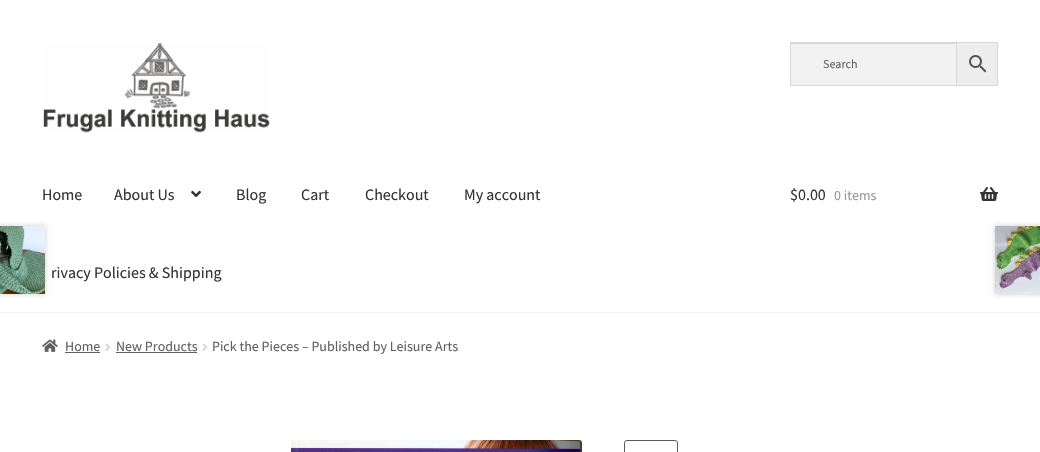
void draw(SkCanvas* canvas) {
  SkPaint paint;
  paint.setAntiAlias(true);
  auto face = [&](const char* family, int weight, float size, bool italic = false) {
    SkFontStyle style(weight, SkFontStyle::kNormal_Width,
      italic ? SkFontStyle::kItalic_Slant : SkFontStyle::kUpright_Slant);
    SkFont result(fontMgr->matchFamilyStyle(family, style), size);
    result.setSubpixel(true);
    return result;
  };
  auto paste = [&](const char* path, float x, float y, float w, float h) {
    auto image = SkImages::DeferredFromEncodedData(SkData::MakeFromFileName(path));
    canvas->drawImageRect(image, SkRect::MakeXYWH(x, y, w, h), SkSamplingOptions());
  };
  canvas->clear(0xffffffff);
  paint.setColor(0xfff0f0f0);
  canvas->drawRect(SkRect::MakeXYWH(0, 312, 1040, 1), paint);
  paste("img/1.png", 43, 43, 227, 90);
  paint.setColor(0xfff2f2f2);
  canvas->drawRect(SkRect::MakeXYWH(791, 44, 165, 41), paint);
  paint.setColor(0xffd4d4d4);
  canvas->drawRect(SkRect::MakeXYWH(791, 43, 165, 1), paint);
  paint.setColor(0xffededed);
  canvas->drawRect(SkRect::MakeXYWH(956.5f, 42.5f, 41, 43), paint);
  paint.setStroke(true);
  paint.setStrokeWidth(1);
  paint.setColor(0xffd8d8d8);
  canvas->drawRect(SkRect::MakeXYWH(956.5f, 42.5f, 41, 43), paint);
  canvas->drawRect(SkRect::MakeXYWH(790.5f, 42.5f, 166, 43), paint);
  paste("img/2.png", 969, 55, 18, 18);
  paste("img/3.png", 191, 190, 10, 8);
  paste("img/4.png", 980, 187, 18, 14);
  paint.setStroke(false);
  paint.setColor(0x33000000);
  paint.setMaskFilter(SkMaskFilter::MakeBlur(kNormal_SkBlurStyle, 2.5f));
  canvas->drawRect(SkRect::MakeXYWH(-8, 226, 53, 68), paint);
  paint.setMaskFilter(nullptr);
  paste("img/5.png", 0, 226, 45, 68);
  paint.setMaskFilter(SkMaskFilter::MakeBlur(kNormal_SkBlurStyle, 2.5f));
  canvas->drawRect(SkRect::MakeXYWH(995, 226, 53, 68), paint);
  paint.setMaskFilter(nullptr);
  paste("img/6.png", 995, 226, 45, 68);
  paste("img/7.png", 291, 440, 291, 12);
  paint.setStroke(true);
  paint.setColor(0xff5b5b5b);
  canvas->drawRoundRect(SkRect::MakeXYWH(624.5f, 440.5f, 53, 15), 2.5f, 2.5f, paint);
  paste("img/8.png", 42, 339, 16, 13);
  paint.setStroke(false);
  paint.setColor(0xff606060);
  canvas->drawRect(SkRect::MakeXYWH(65, 352, 35, 1), paint);
  paste("img/9.png", 105, 343, 6, 8);
  canvas->drawRect(SkRect::MakeXYWH(116, 352, 81, 1), paint);
  paste("img/9.png", 202, 343, 6, 8);
  auto f0 = face("Source Sans Pro", 400, 12);
  canvas->drawString("Search", 823, 68, f0, paint);
  auto f1 = face("Source Sans Pro", 400, 16);
  paint.setColor(0xff333333);
  {
    const struct { const char* s; float x, y; } items[] = {
      {"Home", 42, 200},
      {"About Us", 114, 200},
      {"Blog", 236, 200},
      {"Cart", 301, 200},
      {"Checkout", 365, 200},
      {"My account", 464, 200},
      {"rivacy Policies & Shipping", 51, 278},
      {"$0.00", 790, 200},
    };
    for (auto [s, x, y] : items) {
      canvas->drawString(s, x, y, f1, paint);
    }
  }
  auto f2 = face("Source Sans Pro", 400, 14);
  paint.setColor(0xff999999);
  canvas->drawString("0 items", 834, 200, f2, paint);
  paint.setColor(0xff606060);
  {
    const struct { const char* s; float x, y; } items[] = {
      {"Home", 65, 351},
      {"New Products", 116, 351},
      {"Pick the Pieces – Published by Leisure Arts", 212, 351},
    };
    for (auto [s, x, y] : items) {
      canvas->drawString(s, x, y, f2, paint);
    }
  }
}
